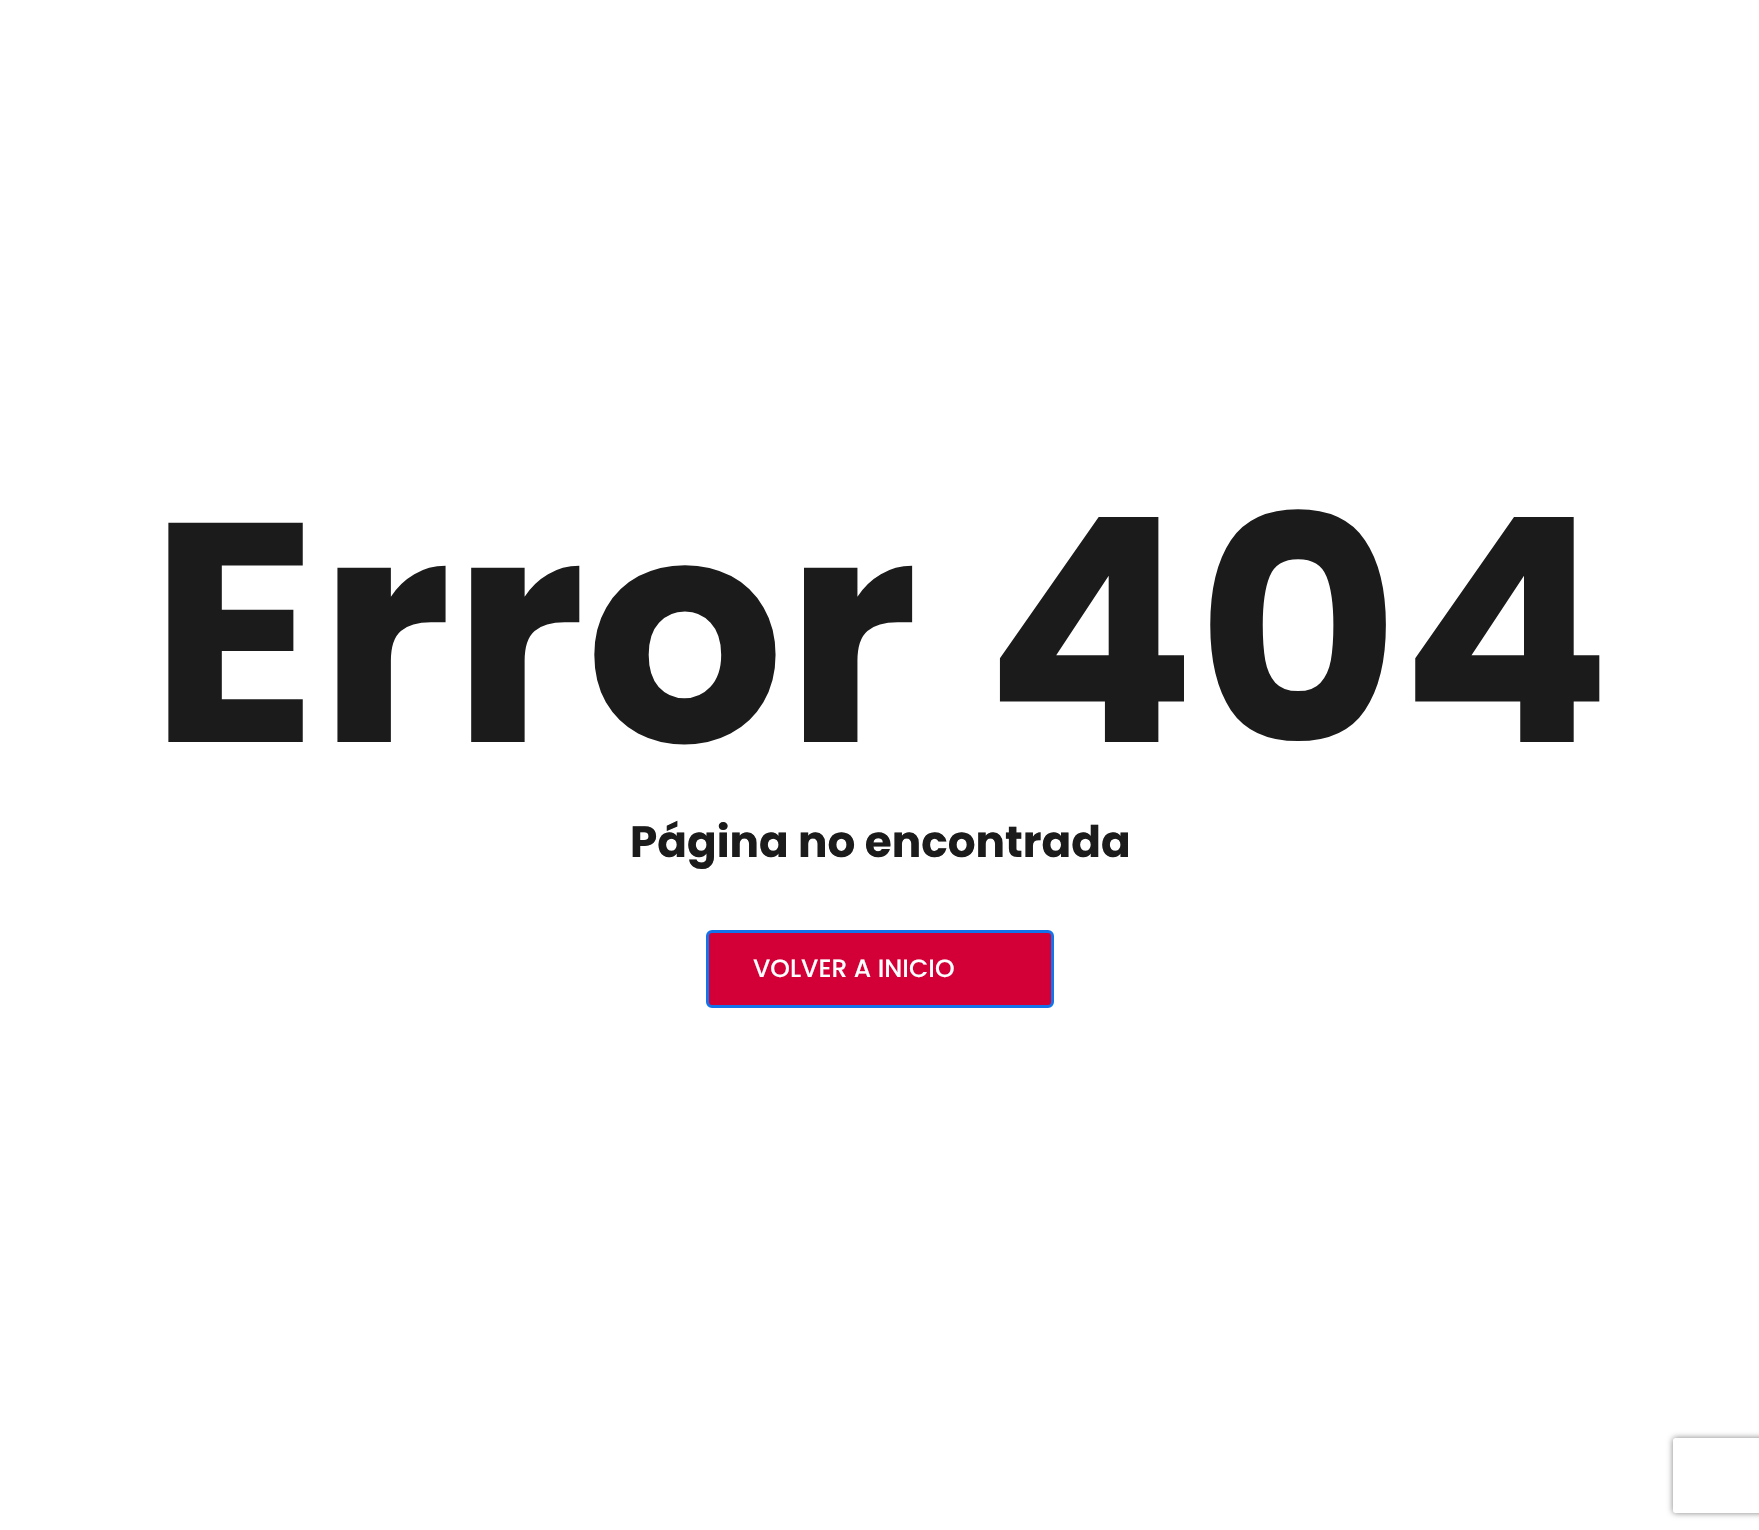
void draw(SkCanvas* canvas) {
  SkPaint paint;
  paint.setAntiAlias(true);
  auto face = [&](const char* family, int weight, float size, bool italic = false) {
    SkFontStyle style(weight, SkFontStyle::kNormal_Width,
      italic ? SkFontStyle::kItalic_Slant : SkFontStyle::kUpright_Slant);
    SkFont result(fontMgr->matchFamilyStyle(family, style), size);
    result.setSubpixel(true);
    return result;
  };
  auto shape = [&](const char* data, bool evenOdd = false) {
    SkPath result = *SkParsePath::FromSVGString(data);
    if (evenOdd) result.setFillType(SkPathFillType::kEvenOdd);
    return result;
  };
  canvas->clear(0xffffffff);
  paint.setColor(0xffd30037);
  canvas->drawRoundRect(SkRect::MakeXYWH(707.5f, 931.5f, 345, 75), 4.5f, 4.5f, paint);
  paint.setStroke(true);
  paint.setStrokeWidth(3);
  paint.setColor(0xff1273eb);
  canvas->drawRoundRect(SkRect::MakeXYWH(707.5f, 931.5f, 345, 75), 4.5f, 4.5f, paint);
  canvas->save();
  canvas->clipPath(shape("M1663 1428H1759V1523H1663ZM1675.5 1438H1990.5C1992 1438 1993 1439 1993 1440.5V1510.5C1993 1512 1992 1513 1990.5 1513H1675.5C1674 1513 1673 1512 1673 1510.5V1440.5C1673 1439 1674 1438 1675.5 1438Z", true), true);
  paint.setStroke(false);
  paint.setColor(0xff808080);
  paint.setMaskFilter(SkMaskFilter::MakeBlur(kNormal_SkBlurStyle, 3));
  canvas->drawRoundRect(SkRect::MakeXYWH(1673, 1438, 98, 75), 2.5f, 2.5f, paint);
  paint.setMaskFilter(nullptr);
  canvas->restore();
  auto f0 = face("Poppins", 700, 312.5f);
  paint.setColor(0xff1c1b1b);
  canvas->drawString("Error 404", 149, 742, f0, paint);
  auto f1 = face("Poppins", 700, 43.75f);
  canvas->drawString("Página no encontrada", 630, 857, f1, paint);
  auto f2 = face("Poppins", 500, 25);
  paint.setColor(0xffffffff);
  canvas->drawString("VOLVER A INICIO", 753, 977, f2, paint);
}
